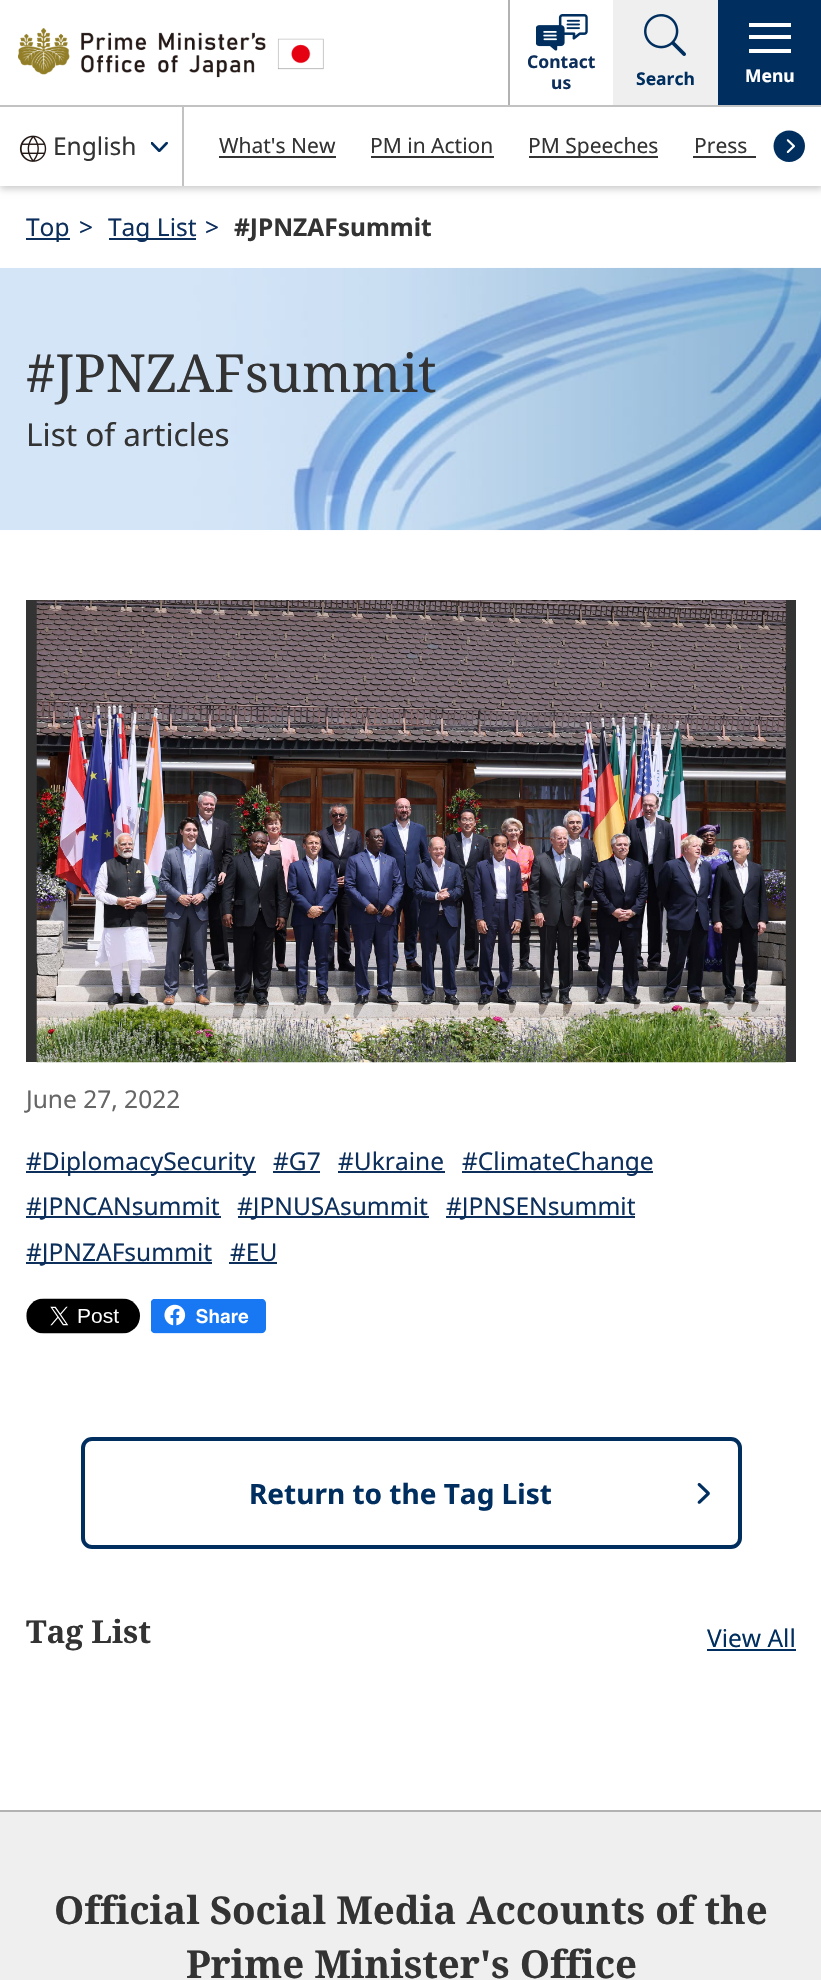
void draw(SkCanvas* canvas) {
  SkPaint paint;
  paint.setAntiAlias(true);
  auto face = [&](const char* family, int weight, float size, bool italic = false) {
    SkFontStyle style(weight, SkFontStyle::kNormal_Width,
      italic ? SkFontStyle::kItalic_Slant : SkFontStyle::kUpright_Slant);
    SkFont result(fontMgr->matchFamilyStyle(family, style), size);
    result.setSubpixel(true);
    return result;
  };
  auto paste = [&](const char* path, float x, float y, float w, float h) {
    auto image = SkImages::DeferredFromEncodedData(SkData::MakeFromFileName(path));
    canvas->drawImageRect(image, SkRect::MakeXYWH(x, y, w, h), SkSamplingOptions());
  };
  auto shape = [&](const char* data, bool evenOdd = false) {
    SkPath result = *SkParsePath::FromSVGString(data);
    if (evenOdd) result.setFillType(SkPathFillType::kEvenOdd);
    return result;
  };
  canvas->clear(0xffffffff);
  paint.setColor(0x33000000);
  paint.setMaskFilter(SkMaskFilter::MakeBlur(kNormal_SkBlurStyle, 3.5f));
  canvas->drawRect(SkRect::MakeXYWH(0, 4, 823, 185), paint);
  paint.setMaskFilter(nullptr);
  paint.setColor(0xffffffff);
  canvas->drawRect(SkRect::MakeXYWH(0, 0, 821, 186), paint);
  paste("img/1.png", 18, 28, 306, 50);
  paint.setColor(0xffb2b2b2);
  canvas->drawRect(SkRect::MakeXYWH(508, 0, 2, 105), paint);
  paste("img/2.png", 536, 14, 52, 37);
  paint.setColor(0xffefefef);
  canvas->drawRect(SkRect::MakeXYWH(613, 0, 105, 105), paint);
  paste("img/3.png", 644, 14, 42, 42);
  {
    const struct { float x, y, w, h; SkColor color; } items[] = {
      {718, 0, 103, 105, 0xff002f5f},
      {749, 23, 42, 4, 0xffffffff},
      {749, 49, 42, 4, 0xffffffff},
      {749, 35, 42, 4, 0xffffffff},
      {0, 105, 821, 2, 0xffc2c2c2},
      {182, 105, 2, 81, 0xffc2c2c2},
    };
    for (auto [x, y, w, h, color] : items) {
      paint.setColor(color);
      canvas->drawRect(SkRect::MakeXYWH(x, y, w, h), paint);
    }
  }
  paste("img/4.png", 19, 135, 28, 27);
  paste("img/5.png", 151, 142, 17, 10);
  {
    const struct { float x, y, w, h; SkColor color; } items[] = {
      {219, 156, 117, 2, 0xff333333},
      {371, 156, 123, 2, 0xff333333},
      {529, 156, 129, 2, 0xff333333},
      {693, 156, 63, 2, 0xff333333},
    };
    for (auto [x, y, w, h, color] : items) {
      paint.setColor(color);
      canvas->drawRect(SkRect::MakeXYWH(x, y, w, h), paint);
    }
  }
  paint.setColor(0xff002f5f);
  canvas->drawPath(shape("M773.5 146C773.5 137.5 780.5 130.5 789 130.5C798 130.5 805 137.5 805 146C805 155 798 162 789 162C780.5 162 773.5 155 773.5 146Z"), paint);
  paste("img/6.png", 786, 139, 9, 14);
  paint.setColor(0xff0d2f5c);
  canvas->drawRect(SkRect::MakeXYWH(26, 238, 44, 2), paint);
  canvas->drawRect(SkRect::MakeXYWH(109, 238, 87, 2), paint);
  paste("img/7.png", 0, 267, 821, 264);
  paint.setColor(0xff333333);
  canvas->drawRect(SkRect::MakeXYWH(26, 600, 770, 462), paint);
  paste("img/8.png", 36, 600, 750, 463);
  {
    const struct { float x, y, w, h; SkColor color; } items[] = {
      {26, 1171, 230, 2, 0xff0d2f5c},
      {273, 1171, 47, 2, 0xff0d2f5c},
      {338, 1171, 107, 2, 0xff0d2f5c},
      {462, 1171, 191, 2, 0xff0d2f5c},
      {26, 1216, 195, 2, 0xff0d2f5c},
      {238, 1216, 191, 2, 0xff0d2f5c},
      {446, 1216, 189, 2, 0xff0d2f5c},
      {26, 1262, 186, 2, 0xff0d2f5c},
      {229, 1262, 48, 2, 0xff0d2f5c},
    };
    for (auto [x, y, w, h, color] : items) {
      paint.setColor(color);
      canvas->drawRect(SkRect::MakeXYWH(x, y, w, h), paint);
    }
  }
  paste("img/9.png", 26, 1298, 114, 36);
  paste("img/10.png", 151, 1299, 115, 35);
  paint.setStroke(true);
  paint.setStrokeWidth(4);
  paint.setColor(0xff002f5f);
  canvas->drawRoundRect(SkRect::MakeXYWH(83, 1439, 657, 108), 9, 9, paint);
  paste("img/11.png", 697, 1483, 13, 21);
  paint.setStroke(false);
  {
    const struct { float x, y, w, h; SkColor color; } items[] = {
      {707, 1649, 89, 2, 0xff002f5f},
      {0, 1812, 821, 168, 0xffefefef},
      {0, 1810, 821, 2, 0xffb2b2b2},
    };
    for (auto [x, y, w, h, color] : items) {
      paint.setColor(color);
      canvas->drawRect(SkRect::MakeXYWH(x, y, w, h), paint);
    }
  }
  auto f0 = face("Noto Sans", 700, 17.5f);
  paint.setColor(0xff0d2f5c);
  canvas->drawString("Contact", 527, 68, f0, paint);
  canvas->drawString("us", 551, 89, f0, paint);
  paint.setColor(0xff002f5f);
  canvas->drawString("Search", 636, 85, f0, paint);
  paint.setColor(0xffffffff);
  canvas->drawString("Menu", 745, 82, f0, paint);
  auto f1 = face("Noto Sans", 400, 24.5f);
  paint.setColor(0xff333333);
  canvas->drawString("English", 53, 155, f1, paint);
  auto f2 = face("Noto Sans", 400, 21);
  {
    const struct { const char* s; float x, y; } items[] = {
      {"What's New", 219, 153},
      {"PM in Action", 370, 153},
      {"PM Speeches", 528, 153},
      {"Press", 694, 153},
    };
    for (auto [s, x, y] : items) {
      canvas->drawString(s, x, y, f2, paint);
    }
  }
  paint.setColor(0xff0d2f5c);
  {
    const struct { const char* s; float x, y; } items[] = {
      {"Top", 26, 236},
      {">", 79, 236},
      {"Tag List", 108, 236},
      {">", 205, 236},
    };
    for (auto [s, x, y] : items) {
      canvas->drawString(s, x, y, f1, paint);
    }
  }
  auto f3 = face("Noto Sans", 700, 24.5f);
  paint.setColor(0xff333333);
  canvas->drawString("#JPNZAFsummit", 234, 236, f3, paint);
  auto f4 = face("Noto Serif", 400, 52.5f);
  canvas->drawString("#JPNZAFsummit", 26, 392, f4, paint);
  auto f5 = face("Noto Sans", 400, 31.5f);
  canvas->drawString("List of articles", 26, 446, f5, paint);
  paint.setColor(0xff666666);
  canvas->drawString("June 27, 2022", 26, 1108, f1, paint);
  paint.setColor(0xff0d2f5c);
  {
    const struct { const char* s; float x, y; } items[] = {
      {"#DiplomacySecurity", 26, 1170},
      {"#G7", 273, 1170},
      {"#Ukraine", 338, 1170},
      {"#ClimateChange", 462, 1170},
      {"#JPNCANsummit", 26, 1215},
      {"#JPNUSAsummit", 237, 1215},
      {"#JPNSENsummit", 446, 1215},
      {"#JPNZAFsummit", 26, 1261},
      {"#EU", 230, 1261},
    };
    for (auto [s, x, y] : items) {
      canvas->drawString(s, x, y, f1, paint);
    }
  }
  auto f6 = face("Noto Sans", 700, 28);
  paint.setColor(0xff002f5f);
  canvas->drawString("Return to the Tag List", 249, 1504, f6, paint);
  auto f7 = face("Noto Serif", 700, 31.5f);
  paint.setColor(0xff333333);
  canvas->drawString("Tag List", 26, 1643, f7, paint);
  paint.setColor(0xff002f5f);
  canvas->drawString("View All", 707, 1647, f1, paint);
  auto f8 = face("Noto Serif", 700, 38.5f);
  paint.setColor(0xff333333);
  canvas->drawString("Official Social Media Accounts of the", 54, 1924, f8, paint);
  canvas->drawString("Prime Minister's Office", 186, 1978, f8, paint);
}
